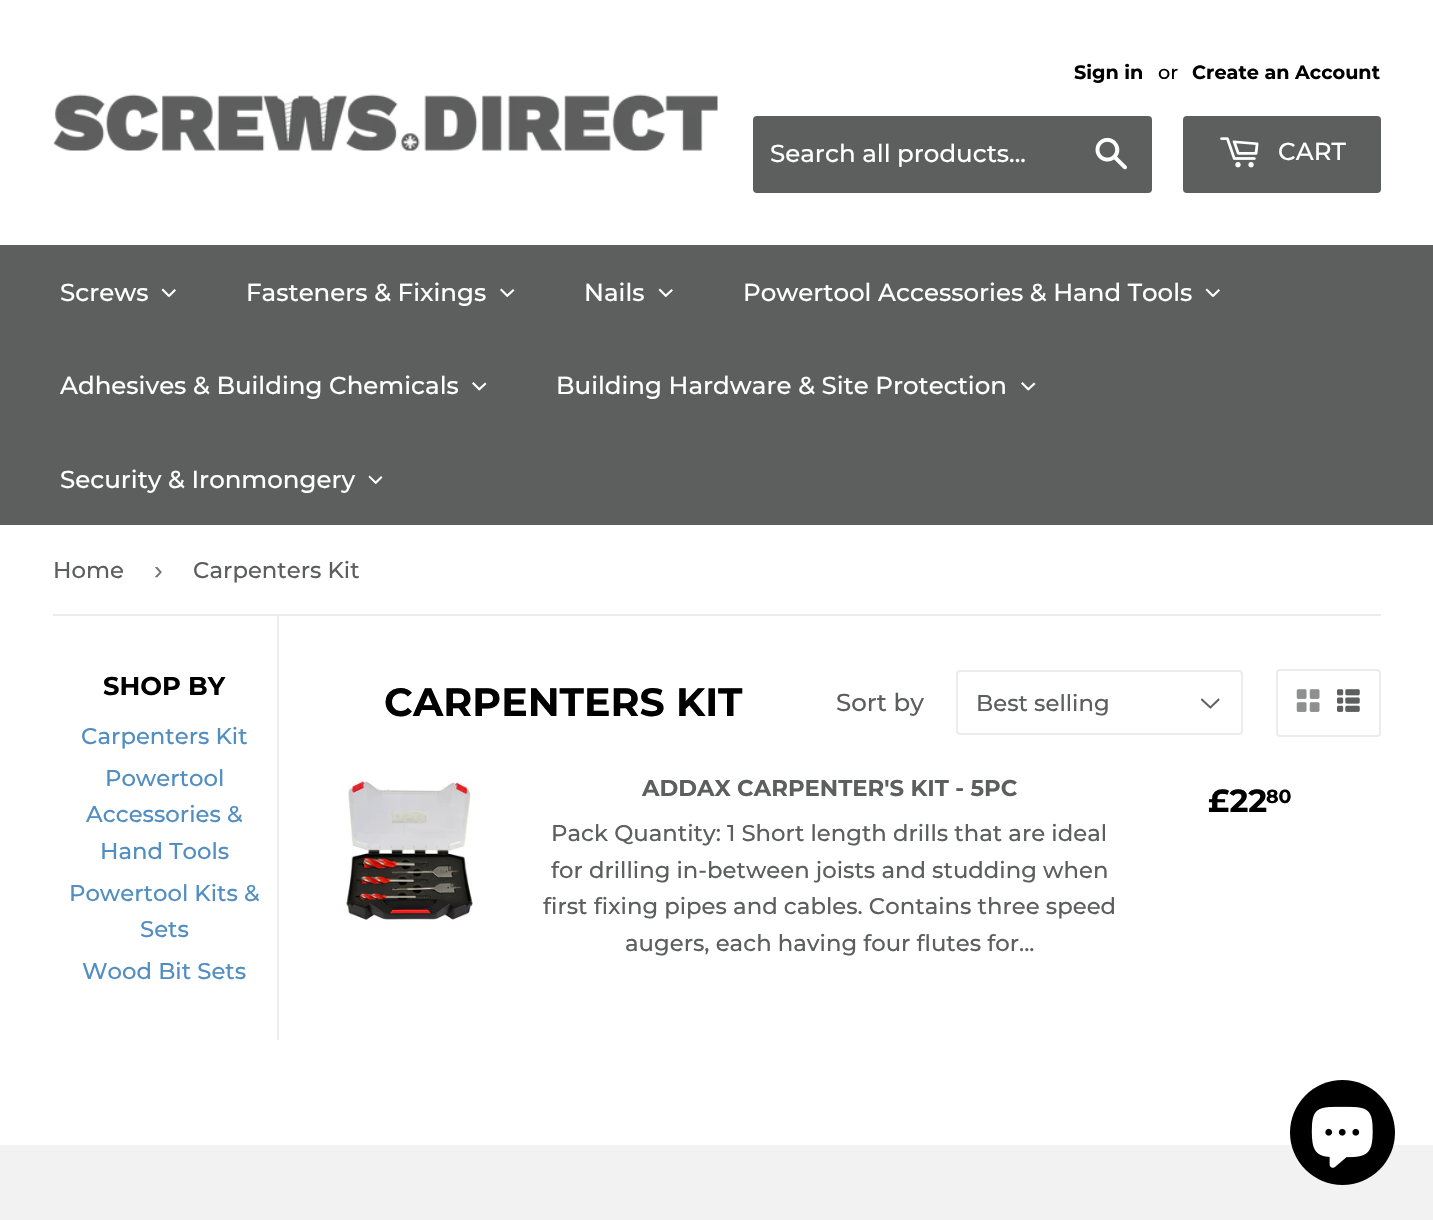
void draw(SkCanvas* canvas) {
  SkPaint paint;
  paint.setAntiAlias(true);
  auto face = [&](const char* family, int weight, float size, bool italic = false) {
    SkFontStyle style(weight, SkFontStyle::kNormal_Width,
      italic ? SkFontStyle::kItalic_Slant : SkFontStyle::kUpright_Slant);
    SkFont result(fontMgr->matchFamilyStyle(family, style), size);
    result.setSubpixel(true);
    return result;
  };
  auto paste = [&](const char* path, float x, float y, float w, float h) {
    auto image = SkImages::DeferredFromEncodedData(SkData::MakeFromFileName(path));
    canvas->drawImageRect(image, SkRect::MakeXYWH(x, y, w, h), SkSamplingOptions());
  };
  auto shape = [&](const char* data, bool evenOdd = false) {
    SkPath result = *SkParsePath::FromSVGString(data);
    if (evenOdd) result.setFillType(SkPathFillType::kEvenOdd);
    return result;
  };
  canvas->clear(0xffffffff);
  paste("img/1.png", 53, 94, 665, 57);
  paint.setColor(0xff5d5e5e);
  canvas->drawRoundRect(SkRect::MakeXYWH(753, 116, 399, 77), 4, 4, paint);
  paste("img/2.png", 1095, 137, 32, 33);
  canvas->drawRoundRect(SkRect::MakeXYWH(1183, 116, 198, 77), 4, 4, paint);
  paste("img/3.png", 1220, 137, 39, 31);
  canvas->drawRect(SkRect::MakeXYWH(0, 245, 1433, 280), paint);
  paint.setColor(0xffffffff);
  canvas->drawPath(shape("M174.5 289L176 290.5L169.5 297L168 295.5Z"), paint);
  canvas->drawPath(shape("M163 288.5L170 295.5L168.5 297L161.5 290Z"), paint);
  canvas->drawPath(shape("M513 289L514.5 290.5L507.5 297L506 295.5Z"), paint);
  canvas->drawPath(shape("M501.5 288.5L508.5 295.5L507 297L500 290Z"), paint);
  canvas->drawPath(shape("M671.5 289L673 290.5L666 297L664.5 295.5Z"), paint);
  canvas->drawPath(shape("M660 288.5L667 295.5L665.5 297L658.5 290Z"), paint);
  canvas->drawPath(shape("M1218.5 289L1220 290.5L1213.5 297L1212 295.5Z"), paint);
  canvas->drawPath(shape("M1207 288.5L1214 295.5L1212.5 297L1205.5 290Z"), paint);
  canvas->drawPath(shape("M485 382.5L486.5 384L479.5 390.5L478 389Z"), paint);
  canvas->drawPath(shape("M473.5 382L480.5 389L479 390.5L472 383.5Z"), paint);
  canvas->drawPath(shape("M1034 382.5L1035.5 384L1028.5 390.5L1027 389Z"), paint);
  canvas->drawPath(shape("M1022.5 382L1029.5 389L1028 390.5L1021 383.5Z"), paint);
  canvas->drawPath(shape("M381 476L382.5 477.5L376 484L374.5 482.5Z"), paint);
  canvas->drawPath(shape("M369.5 475.5L377 482.5L375.5 484L368.5 477Z"), paint);
  paint.setColor(0xffececec);
  canvas->drawRect(SkRect::MakeXYWH(53, 614, 1328, 2), paint);
  canvas->drawRect(SkRect::MakeXYWH(277, 616, 2, 424), paint);
  paste("img/4.png", 1201, 698, 19, 11);
  paint.setStroke(true);
  paint.setStrokeWidth(2);
  canvas->drawRoundRect(SkRect::MakeXYWH(957, 671, 285, 63), 3, 3, paint);
  canvas->drawRoundRect(SkRect::MakeXYWH(1277, 670, 103, 66), 3, 3, paint);
  paste("img/5.png", 1296, 689, 24, 23);
  paste("img/6.png", 1337, 689, 23, 23);
  paste("img/7.png", 345, 779, 128, 141);
  paint.setStroke(false);
  paint.setColor(0xfff2f2f2);
  canvas->drawRect(SkRect::MakeXYWH(0, 1145, 1433, 75), paint);
  paint.setColor(0xff000000);
  canvas->drawCircle(1342.5f, 1132.5f, 52.5f, paint);
  paste("img/8.png", 1311, 1106, 62, 62);
  auto f0 = face("Montserrat", 700, 19.25f);
  canvas->drawString("Sign in", 1074, 79, f0, paint);
  auto f1 = face("Montserrat", 500, 19.25f);
  canvas->drawString("or", 1158, 79, f1, paint);
  canvas->drawString("Create an Account", 1192, 79, f0, paint);
  auto f2 = face("Montserrat", 500, 24.5f);
  paint.setColor(0xffffffff);
  {
    const struct { const char* s; float x, y; } items[] = {
      {"Search all products...", 770, 162},
      {"CART", 1278, 160},
      {"Screws", 60, 301},
      {"Fasteners & Fixings", 246, 301},
      {"Nails", 584, 301},
      {"Powertool Accessories & Hand Tools", 743, 301},
      {"Adhesives & Building Chemicals", 60, 394},
      {"Building Hardware & Site Protection", 556, 394},
      {"Security & Ironmongery", 60, 488},
    };
    for (auto [s, x, y] : items) {
      canvas->drawString(s, x, y, f2, paint);
    }
  }
  auto f3 = face("Montserrat", 500, 22.75f);
  paint.setColor(0xff5d5e5e);
  canvas->drawString("Home", 53, 578, f3, paint);
  auto f4 = face("Liberation Sans", 400, 26);
  paint.setColor(0xff767676);
  canvas->drawString("›", 154, 579, f4, paint);
  paint.setColor(0xff5d5e5e);
  canvas->drawString("Carpenters Kit", 193, 578, f3, paint);
  auto f5 = face("Montserrat", 700, 25.75f);
  paint.setColor(0xff000000);
  canvas->drawString("SHOP BY", 103, 695, f5, paint);
  paint.setColor(0xff528ec1);
  {
    const struct { const char* s; float x, y; } items[] = {
      {"Carpenters Kit", 81, 744},
      {"Powertool", 105, 786},
      {"Accessories &", 86, 822},
      {"Hand Tools", 100, 859},
      {"Powertool Kits &", 69, 901},
      {"Sets", 140, 937},
      {"Wood Bit Sets", 82, 979},
    };
    for (auto [s, x, y] : items) {
      canvas->drawString(s, x, y, f3, paint);
    }
  }
  auto f6 = face("Montserrat", 700, 39.5f);
  paint.setColor(0xff000000);
  canvas->drawString("CARPENTERS KIT", 384, 716, f6, paint);
  paint.setColor(0xff5d5e5e);
  canvas->drawString("Sort by", 836, 711, f2, paint);
  canvas->drawString("Best selling", 976, 711, f3, paint);
  auto f7 = face("Montserrat", 700, 22.75f);
  canvas->drawString("ADDAX CARPENTER'S KIT - 5PC", 642, 796, f7, paint);
  {
    const struct { const char* s; float x, y; } items[] = {
      {"Pack Quantity: 1 Short length drills that are ideal", 551, 841},
      {"for drilling in-between joists and studding when", 551, 878},
      {"first fixing pipes and cables. Contains three speed", 543, 914},
      {"augers, each having four flutes for...", 625, 951},
    };
    for (auto [s, x, y] : items) {
      canvas->drawString(s, x, y, f3, paint);
    }
  }
  auto f8 = face("Montserrat", 700, 32);
  paint.setColor(0xff000000);
  canvas->drawString("£22", 1208, 812, f8, paint);
  auto f9 = face("Montserrat", 700, 19);
  canvas->drawString("80", 1266, 803, f9, paint);
}
